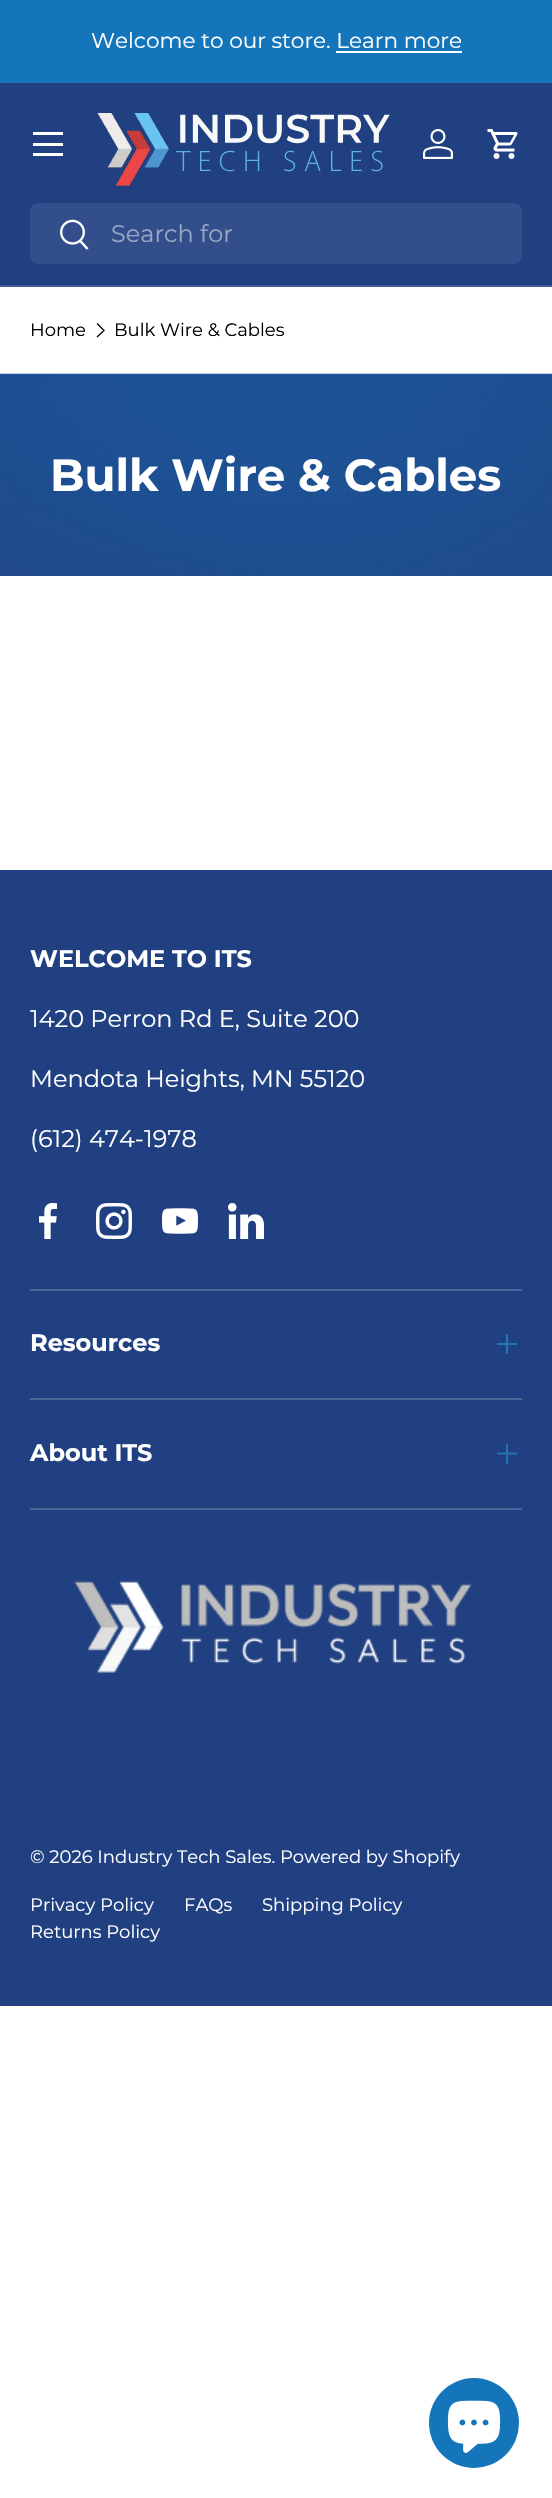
void draw(SkCanvas* canvas) {
  SkPaint paint;
  paint.setAntiAlias(true);
  auto face = [&](const char* family, int weight, float size, bool italic = false) {
    SkFontStyle style(weight, SkFontStyle::kNormal_Width,
      italic ? SkFontStyle::kItalic_Slant : SkFontStyle::kUpright_Slant);
    SkFont result(fontMgr->matchFamilyStyle(family, style), size);
    result.setSubpixel(true);
    return result;
  };
  auto paste = [&](const char* path, float x, float y, float w, float h) {
    auto image = SkImages::DeferredFromEncodedData(SkData::MakeFromFileName(path));
    canvas->drawImageRect(image, SkRect::MakeXYWH(x, y, w, h), SkSamplingOptions());
  };
  auto shape = [&](const char* data, bool evenOdd = false) {
    SkPath result = *SkParsePath::FromSVGString(data);
    if (evenOdd) result.setFillType(SkPathFillType::kEvenOdd);
    return result;
  };
  canvas->clear(0xffffffff);
  {
    const struct { float x, y, w, h; SkColor color; } items[] = {
      {0, 0, 552, 83, 0xff1575ba},
      {336, 51, 126, 2, 0xffffffff},
      {0, 83, 552, 202, 0xff214081},
      {0, 285, 552, 2, 0xff425d94},
      {33, 132, 30, 3, 0xffffffff},
      {33, 153, 30, 3, 0xffffffff},
      {33, 143, 30, 3, 0xffffffff},
    };
    for (auto [x, y, w, h, color] : items) {
      paint.setColor(color);
      canvas->drawRect(SkRect::MakeXYWH(x, y, w, h), paint);
    }
  }
  paste("img/1.png", 97, 113, 293, 73);
  paste("img/2.png", 423, 129, 30, 30);
  paste("img/3.png", 487, 129, 31, 30);
  paint.setColor(0xff334f8b);
  canvas->drawRoundRect(SkRect::MakeXYWH(30, 203, 492, 61), 8, 8, paint);
  paste("img/4.png", 60, 219, 29, 31);
  paint.setStroke(true);
  paint.setStrokeWidth(1.3f);
  paint.setColor(0xff000000);
  canvas->drawPath(shape("M97 323.5L104 330.5L97 337"), paint);
  paste("img/5.png", 0, 373, 552, 203);
  paint.setStroke(false);
  paint.setColor(0xff214081);
  canvas->drawRect(SkRect::MakeXYWH(0, 870, 552, 1136), paint);
  paste("img/6.png", 39, 1203, 18, 36);
  paste("img/7.png", 96, 1203, 36, 36);
  paste("img/8.png", 162, 1208, 36, 26);
  paste("img/9.png", 228, 1203, 36, 36);
  paint.setColor(0xff4d669a);
  canvas->drawRect(SkRect::MakeXYWH(30, 1289, 492, 2), paint);
  canvas->drawRect(SkRect::MakeXYWH(30, 1398, 492, 2), paint);
  paste("img/10.png", 497, 1334, 20, 20);
  canvas->drawRect(SkRect::MakeXYWH(30, 1508, 492, 2), paint);
  paste("img/11.png", 497, 1444, 20, 20);
  paste("img/12.png", 74, 1580, 398, 93);
  paint.setColor(0xff1575ba);
  canvas->drawCircle(474, 2423, 45, paint);
  paste("img/13.png", 447, 2400, 54, 53);
  auto f0 = face("Montserrat", 400, 21.6f);
  paint.setColor(0xffffffff);
  canvas->drawString("Welcome to our store. Learn more", 91, 48, f0, paint);
  auto f1 = face("Montserrat", 400, 24);
  paint.setColor(0xff99a7c5);
  canvas->drawString("Search for", 111, 242, f1, paint);
  auto f2 = face("Montserrat", 400, 18);
  paint.setColor(0xff000000);
  canvas->drawString("Home", 30, 336, f2, paint);
  canvas->drawString("Bulk Wire & Cables", 114, 336, f2, paint);
  auto f3 = face("Montserrat", 700, 45.1f);
  paint.setColor(0xffffffff);
  canvas->drawString("Bulk Wire & Cables", 50, 491, f3, paint);
  auto f4 = face("Montserrat", 700, 24);
  canvas->drawString("WELCOME TO ITS", 30, 967, f4, paint);
  {
    const struct { const char* s; float x, y; } items[] = {
      {"1420 Perron Rd E, Suite 200", 30, 1027},
      {"Mendota Heights, MN 55120", 30, 1087},
      {"(612) 474-1978", 30, 1147},
    };
    for (auto [s, x, y] : items) {
      canvas->drawString(s, x, y, f1, paint);
    }
  }
  canvas->drawString("Resources", 30, 1351, f4, paint);
  canvas->drawString("About ITS", 30, 1461, f4, paint);
  {
    const struct { const char* s; float x, y; } items[] = {
      {"© 2026 Industry Tech Sales. Powered by Shopify", 30, 1863},
      {"Privacy Policy", 30, 1911},
      {"FAQs", 184, 1911},
      {"Shipping Policy", 262, 1911},
      {"Returns Policy", 30, 1938},
    };
    for (auto [s, x, y] : items) {
      canvas->drawString(s, x, y, f2, paint);
    }
  }
}
